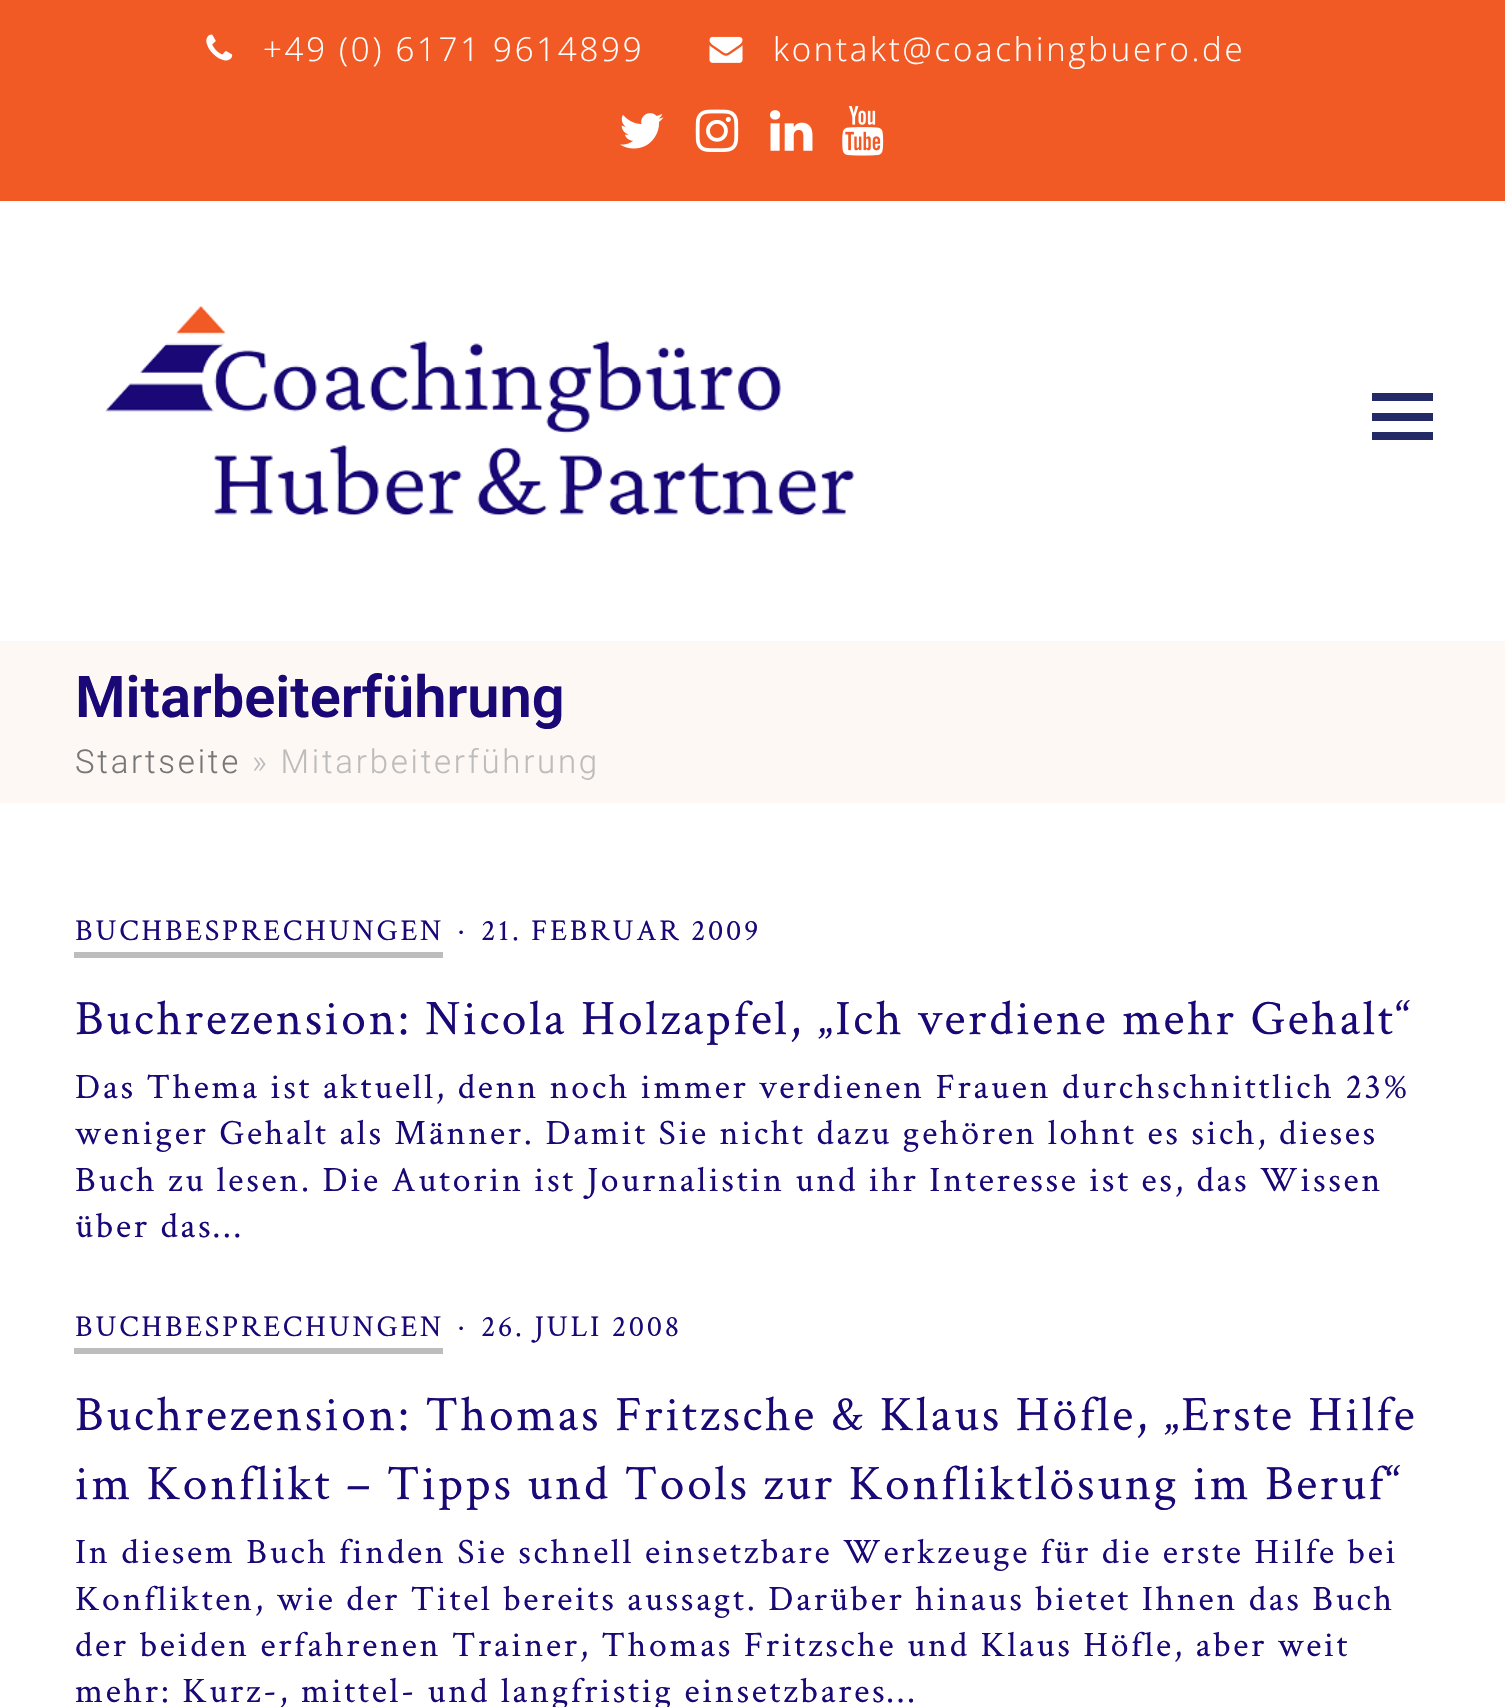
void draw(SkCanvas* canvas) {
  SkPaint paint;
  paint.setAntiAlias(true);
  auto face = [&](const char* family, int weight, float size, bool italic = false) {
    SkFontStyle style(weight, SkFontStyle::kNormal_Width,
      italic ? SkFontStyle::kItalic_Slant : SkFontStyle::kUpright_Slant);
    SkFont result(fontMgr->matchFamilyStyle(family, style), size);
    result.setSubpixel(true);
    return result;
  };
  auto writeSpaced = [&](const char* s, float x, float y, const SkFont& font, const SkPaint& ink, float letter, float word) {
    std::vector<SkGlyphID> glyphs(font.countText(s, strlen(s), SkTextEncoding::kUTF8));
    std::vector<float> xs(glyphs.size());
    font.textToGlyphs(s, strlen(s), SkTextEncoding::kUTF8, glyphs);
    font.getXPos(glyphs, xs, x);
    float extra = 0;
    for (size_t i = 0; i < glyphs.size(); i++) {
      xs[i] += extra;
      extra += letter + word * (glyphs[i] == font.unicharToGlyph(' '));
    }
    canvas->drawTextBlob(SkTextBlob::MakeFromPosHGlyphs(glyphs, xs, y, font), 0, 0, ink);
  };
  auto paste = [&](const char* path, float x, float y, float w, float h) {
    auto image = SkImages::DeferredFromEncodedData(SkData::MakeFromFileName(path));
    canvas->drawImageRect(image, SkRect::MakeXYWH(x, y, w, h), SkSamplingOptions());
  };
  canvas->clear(0xffffffff);
  paint.setColor(0xfff15a24);
  canvas->drawRect(SkRect::MakeXYWH(0, 0, 1505, 201), paint);
  paste("img/1.png", 206, 34, 27, 27);
  paste("img/2.png", 709, 36, 34, 27);
  paste("img/3.png", 620, 113, 44, 36);
  paste("img/4.png", 695, 109, 44, 43);
  paste("img/5.png", 770, 110, 43, 41);
  paste("img/6.png", 842, 106, 42, 50);
  paste("img/7.png", 105, 306, 750, 210);
  {
    const struct { float x, y, w, h; SkColor color; } items[] = {
      {1372, 413, 61, 8, 0xff242a65},
      {1372, 393, 61, 8, 0xff242a65},
      {1372, 432, 61, 8, 0xff242a65},
      {0, 641, 1505, 162, 0xfffef8f4},
      {74, 952, 369, 6, 0xffbdbdbd},
      {74, 1348, 369, 6, 0xffbdbdbd},
    };
    for (auto [x, y, w, h, color] : items) {
      paint.setColor(color);
      canvas->drawRect(SkRect::MakeXYWH(x, y, w, h), paint);
    }
  }
  auto f0 = face("Open Sans", 300, 33);
  paint.setColor(0xffffffff);
  writeSpaced("+49 (0) 6171 9614899", 263, 61, f0, paint, 2.75f, 0);
  writeSpaced("kontakt@coachingbuero.de", 773, 61, f0, paint, 2.75f, 0);
  auto f1 = face("Roboto", 600, 57.75f);
  paint.setColor(0xff190876);
  canvas->drawString("Mitarbeiterführung", 75, 717, f1, paint);
  auto f2 = face("Roboto", 300, 33);
  paint.setColor(0xff777777);
  writeSpaced("Startseite", 75, 773, f2, paint, 2.75f, 0);
  paint.setColor(0xffbcbcbc);
  writeSpaced("» Mitarbeiterführung", 252, 773, f2, paint, 2.75f, 0);
  auto f3 = face("Crimson Text", 400, 30.25f);
  paint.setColor(0xff190876);
  {
    const struct { const char* s; float x, y; } items[] = {
      {"BUCHBESPRECHUNGEN", 75, 940},
      {"·", 458, 940},
      {"21. FEBRUAR 2009", 481, 940},
    };
    for (auto [s, x, y] : items) {
      writeSpaced(s, x, y, f3, paint, 2.75f, 0);
    }
  }
  auto f4 = face("Crimson Text", 400, 49.5f);
  writeSpaced("Buchrezension: Nicola Holzapfel, „Ich verdiene mehr Gehalt“", 75, 1034, f4, paint, 2.75f, 0);
  auto f5 = face("Crimson Text", 400, 35.75f);
  {
    const struct { const char* s; float x, y; } items[] = {
      {"Das Thema ist aktuell, denn noch immer verdienen Frauen durchschnittlich 23%", 75, 1098},
      {"weniger Gehalt als Männer. Damit Sie nicht dazu gehören lohnt es sich, dieses", 75, 1144},
      {"Buch zu lesen. Die Autorin ist Journalistin und ihr Interesse ist es, das Wissen", 75, 1191},
      {"über das…", 75, 1237},
    };
    for (auto [s, x, y] : items) {
      writeSpaced(s, x, y, f5, paint, 2.75f, 0);
    }
  }
  {
    const struct { const char* s; float x, y; } items[] = {
      {"BUCHBESPRECHUNGEN", 75, 1336},
      {"·", 458, 1336},
      {"26. JULI 2008", 481, 1336},
    };
    for (auto [s, x, y] : items) {
      writeSpaced(s, x, y, f3, paint, 2.75f, 0);
    }
  }
  writeSpaced("Buchrezension: Thomas Fritzsche & Klaus Höfle, „Erste Hilfe", 75, 1430, f4, paint, 2.75f, 0);
  writeSpaced("im Konflikt – Tipps und Tools zur Konfliktlösung im Beruf“", 75, 1499, f4, paint, 2.75f, 0);
  {
    const struct { const char* s; float x, y; } items[] = {
      {"In diesem Buch finden Sie schnell einsetzbare Werkzeuge für die erste Hilfe bei", 75, 1563},
      {"Konflikten, wie der Titel bereits aussagt. Darüber hinaus bietet Ihnen das Buch", 75, 1610},
      {"der beiden erfahrenen Trainer, Thomas Fritzsche und Klaus Höfle, aber weit", 75, 1656},
      {"mehr: Kurz-, mittel- und langfristig einsetzbares…", 75, 1702},
    };
    for (auto [s, x, y] : items) {
      writeSpaced(s, x, y, f5, paint, 2.75f, 0);
    }
  }
}
